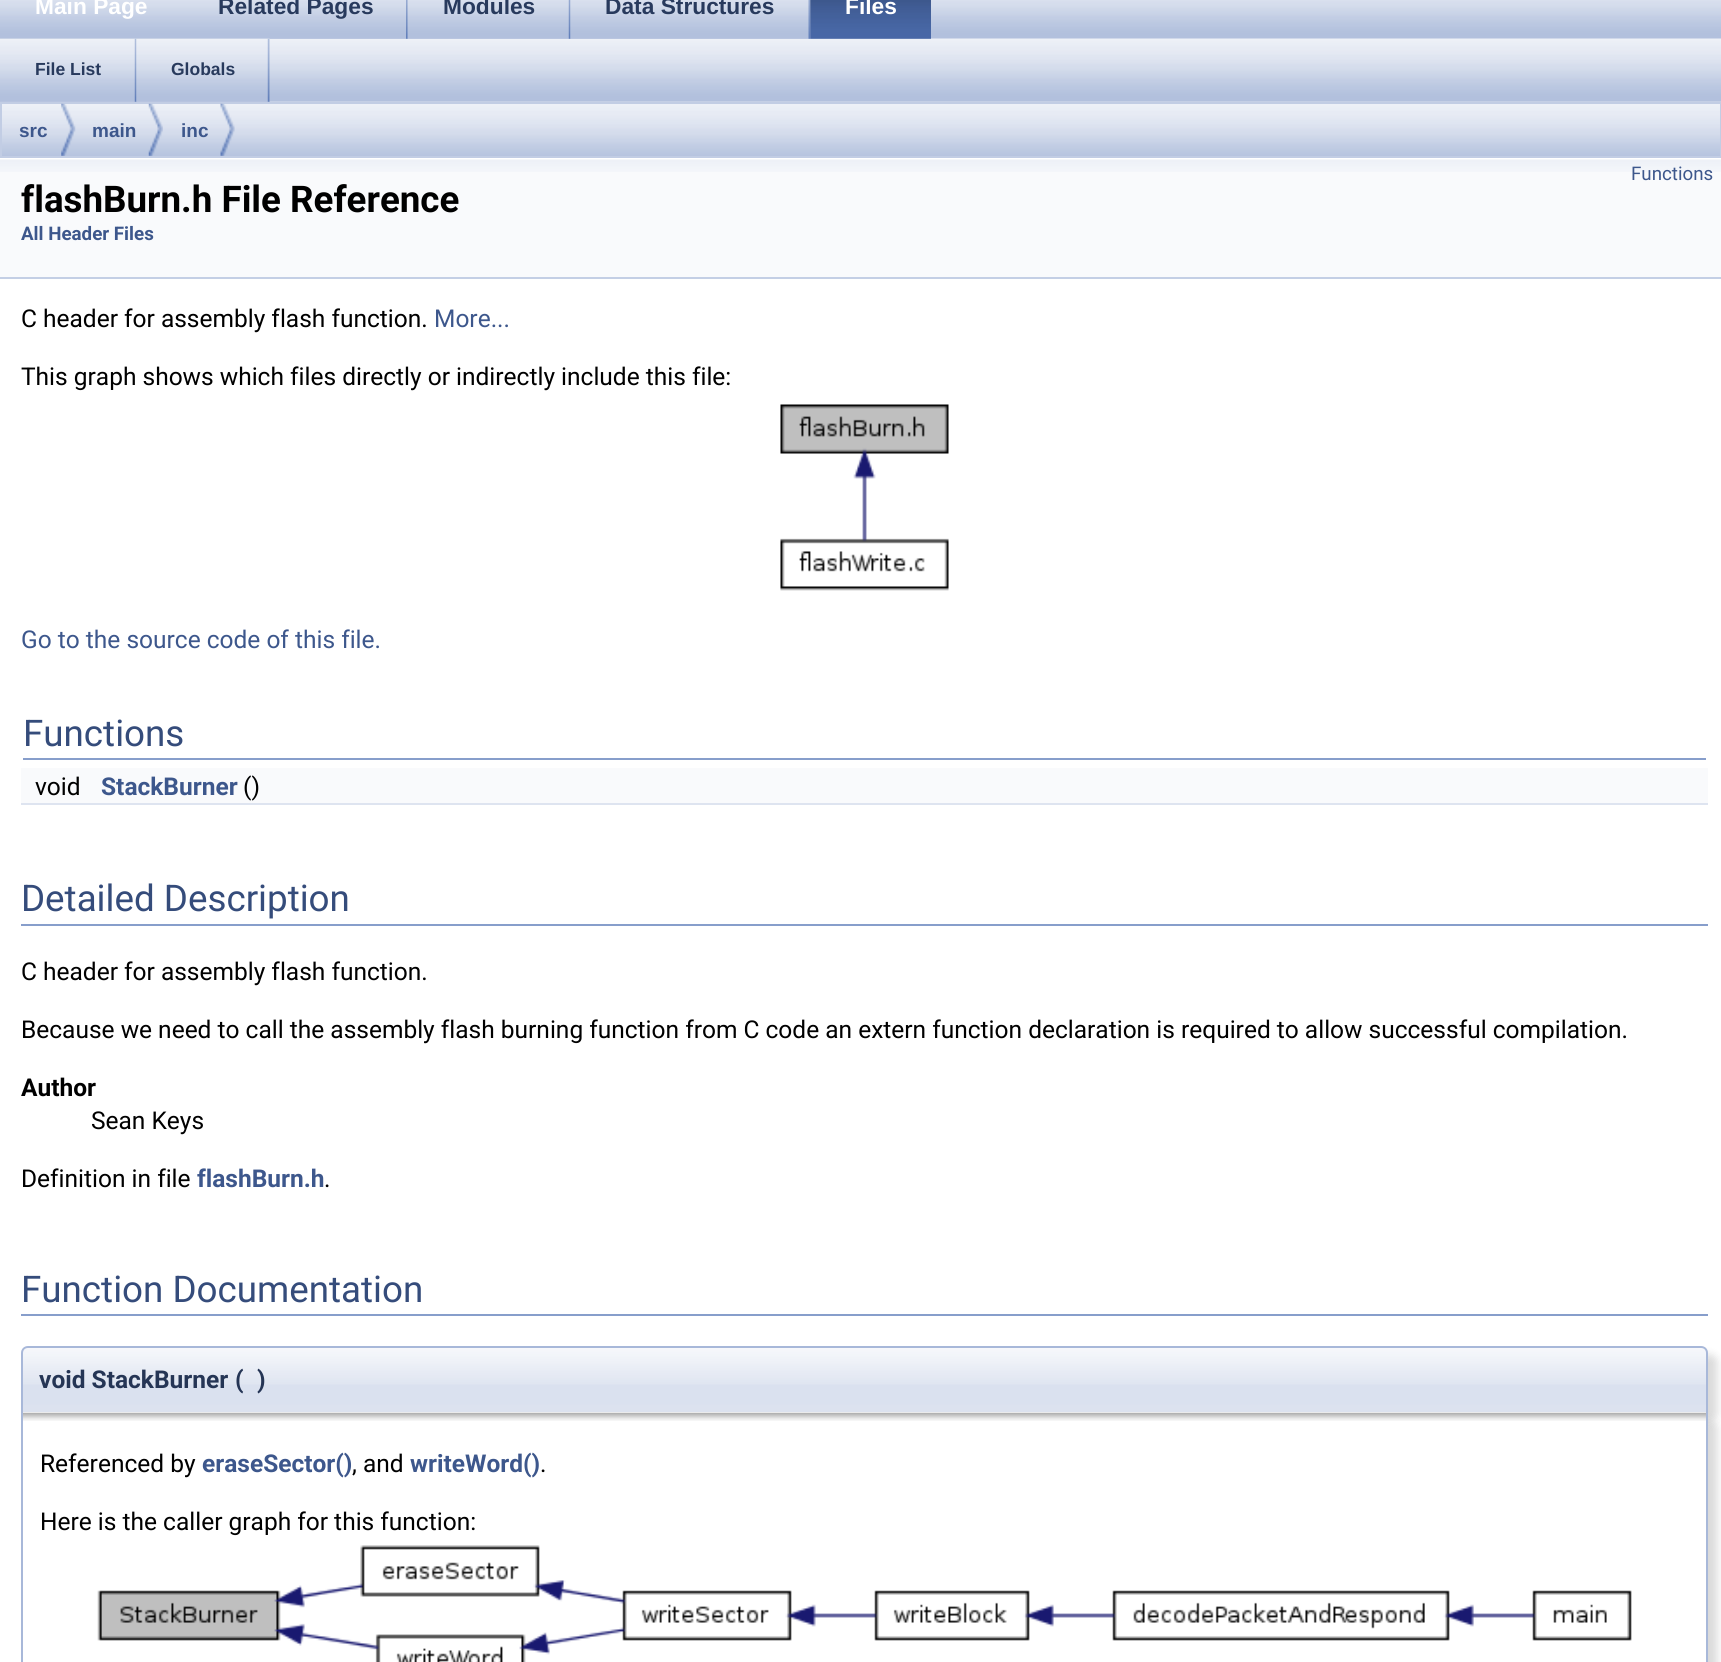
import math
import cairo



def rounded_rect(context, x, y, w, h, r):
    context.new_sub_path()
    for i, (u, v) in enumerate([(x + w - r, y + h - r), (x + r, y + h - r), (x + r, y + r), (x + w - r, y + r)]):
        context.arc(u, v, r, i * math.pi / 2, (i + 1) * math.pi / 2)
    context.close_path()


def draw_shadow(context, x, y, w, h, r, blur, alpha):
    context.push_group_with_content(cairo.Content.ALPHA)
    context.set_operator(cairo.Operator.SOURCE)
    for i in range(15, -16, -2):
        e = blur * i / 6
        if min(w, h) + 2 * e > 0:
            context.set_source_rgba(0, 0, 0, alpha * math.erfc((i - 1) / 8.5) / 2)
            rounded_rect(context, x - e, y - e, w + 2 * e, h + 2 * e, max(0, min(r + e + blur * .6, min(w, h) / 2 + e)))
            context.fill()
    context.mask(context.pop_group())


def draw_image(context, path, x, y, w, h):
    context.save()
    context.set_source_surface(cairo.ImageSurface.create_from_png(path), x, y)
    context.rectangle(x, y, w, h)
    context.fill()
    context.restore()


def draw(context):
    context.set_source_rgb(1, 1, 1)
    context.paint()
    draw_image(context, "images/1.png", 0, 0, 1721, 39)
    draw_image(context, "images/10.png", 0, 38, 1721, 64)
    context.set_source_rgb(185 / 255, 197 / 255, 223 / 255)
    context.rectangle(0, 38, 182, 1)
    context.fill()
    draw_image(context, "images/2.png", 182, 38, 226, 1)
    draw_image(context, "images/3.png", 406, 0, 2, 39)
    draw_image(context, "images/4.png", 407, 0, 164, 39)
    draw_image(context, "images/5.png", 568, 0, 3, 39)
    draw_image(context, "images/6.png", 570, 0, 241, 39)
    draw_image(context, "images/7.png", 808, 0, 3, 39)
    draw_image(context, "images/8.png", 810, 0, 121, 39)
    draw_image(context, "images/9.png", 810, 0, 121, 39)
    draw_image(context, "images/11.png", 0, 38, 137, 64)
    draw_image(context, "images/12.png", 134, 38, 3, 64)
    draw_image(context, "images/13.png", 136, 38, 134, 64)
    draw_image(context, "images/14.png", 267, 38, 3, 64)
    draw_image(context, "images/15.png", 2, 104, 1718, 52)
    context.rectangle(1, 103, 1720, 54)
    context.set_source_rgb(194 / 255, 205 / 255, 228 / 255)
    context.stroke()
    draw_image(context, "images/16.png", 61, 103, 15, 53)
    draw_image(context, "images/17.png", 148, 103, 15, 53)
    draw_image(context, "images/18.png", 220, 103, 15, 53)
    context.set_source_rgb(249 / 255, 250 / 255, 252 / 255)
    context.rectangle(0, 172, 1721, 105)
    context.fill()
    draw_image(context, "images/19.png", 0, 158, 1721, 14)
    context.set_source_rgb(196 / 255, 207 / 255, 229 / 255)
    context.rectangle(0, 277, 1721, 2)
    context.fill()
    draw_image(context, "images/20.png", 780, 404, 169, 187)
    context.set_source_rgb(135 / 255, 158 / 255, 203 / 255)
    context.rectangle(23, 758, 1683, 2)
    context.fill()
    context.set_source_rgb(249 / 255, 250 / 255, 252 / 255)
    context.rectangle(21, 768, 1687, 35)
    context.fill()
    context.set_source_rgb(222 / 255, 228 / 255, 240 / 255)
    context.rectangle(21, 803, 1687, 2)
    context.fill()
    context.set_source_rgb(135 / 255, 158 / 255, 203 / 255)
    context.rectangle(21, 924, 1687, 2)
    context.fill()
    context.rectangle(21, 1314, 1687, 2)
    context.fill()
    context.set_source_rgb(0, 0, 0)
    draw_shadow(context, 30, 1355, 1687, 66, 7, 4.5, 0.15)
    draw_image(context, "images/21.png", 21, 1347, 1687, 65)
    context.set_source_rgb(168 / 255, 184 / 255, 217 / 255)
    context.set_fill_rule(cairo.FillRule.EVEN_ODD)
    context.new_path()
    context.move_to(28, 1346)
    context.line_to(1701, 1346)
    context.curve_to(1705, 1346, 1708, 1349, 1708, 1353)
    context.line_to(1708, 1412)
    context.line_to(21, 1412)
    context.line_to(21, 1353)
    context.curve_to(21, 1349, 24, 1346, 28, 1346)
    context.close_path()
    context.move_to(28, 1348)
    context.line_to(1701, 1348)
    context.curve_to(1704, 1348, 1706, 1350, 1706, 1353)
    context.line_to(1706, 1412)
    context.line_to(23, 1412)
    context.line_to(23, 1353)
    context.curve_to(23, 1350, 25, 1348, 28, 1348)
    context.close_path()
    context.fill()
    context.set_source_rgb(0, 0, 0)
    draw_shadow(context, 30, 1421, 1687, 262, 7, 4.5, 0.15)
    context.set_source_rgb(1, 1, 1)
    context.rectangle(23, 1412, 1683, 250)
    context.fill()
    draw_image(context, "images/22.png", 23, 1412, 1683, 9)
    context.set_source_rgb(168 / 255, 184 / 255, 217 / 255)
    context.new_path()
    context.move_to(21, 1412)
    context.line_to(1708, 1412)
    context.line_to(1708, 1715)
    context.curve_to(1708, 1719, 1705, 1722, 1701, 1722)
    context.line_to(28, 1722)
    context.curve_to(24, 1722, 21, 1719, 21, 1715)
    context.close_path()
    context.move_to(23, 1412)
    context.line_to(1706, 1412)
    context.line_to(1706, 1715)
    context.curve_to(1706, 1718, 1704, 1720, 1701, 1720)
    context.line_to(28, 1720)
    context.curve_to(25, 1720, 23, 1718, 23, 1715)
    context.close_path()
    context.fill()
    draw_image(context, "images/23.png", 97, 1545, 1535, 117)
    context.select_font_face("Liberation Sans", cairo.FontSlant.NORMAL, cairo.FontWeight.BOLD)
    context.set_font_size(22.75)
    context.set_source_rgb(1, 1, 1)
    context.move_to(35, 14)
    context.show_text("Main Page")
    context.set_source_rgb(40 / 255, 58 / 255, 93 / 255)
    context.move_to(218, 14)
    context.show_text("Related Pages")
    context.move_to(443, 14)
    context.show_text("Modules")
    context.move_to(605, 14)
    context.show_text("Data Structures")
    context.set_source_rgb(1, 1, 1)
    context.move_to(845, 14)
    context.show_text("Files")
    context.set_font_size(17.5)
    context.set_source_rgb(40 / 255, 58 / 255, 93 / 255)
    context.move_to(35, 75)
    context.show_text("File List")
    context.move_to(171, 75)
    context.show_text("Globals")
    context.set_font_size(19)
    context.set_source_rgb(61 / 255, 87 / 255, 140 / 255)
    context.move_to(19, 137)
    context.show_text("src")
    context.move_to(92, 137)
    context.show_text("main")
    context.move_to(181, 137)
    context.show_text("inc")
    context.select_font_face("Roboto")
    context.set_font_size(18.75)
    context.move_to(1631, 180)
    context.show_text("Functions")
    context.select_font_face("Roboto", cairo.FontSlant.NORMAL, cairo.FontWeight.BOLD)
    context.set_font_size(36.75)
    context.set_source_rgb(0, 0, 0)
    context.move_to(21, 212)
    context.show_text("flashBurn.h File Reference")
    context.set_font_size(18.75)
    context.set_source_rgb(61 / 255, 87 / 255, 140 / 255)
    context.move_to(21, 240)
    context.show_text("All Header Files")
    context.select_font_face("Roboto")
    context.set_font_size(24.5)
    context.set_source_rgb(0, 0, 0)
    context.move_to(21, 327)
    context.show_text("C header for assembly flash function.")
    context.set_source_rgb(61 / 255, 87 / 255, 140 / 255)
    context.move_to(434, 327)
    context.show_text("More...")
    context.set_source_rgb(0, 0, 0)
    context.move_to(21, 385)
    context.show_text("This graph shows which files directly or indirectly include this file:")
    context.set_source_rgb(61 / 255, 87 / 255, 140 / 255)
    context.move_to(21, 648)
    context.show_text("Go to the source code of this file.")
    context.set_font_size(36.75)
    context.set_source_rgb(53 / 255, 76 / 255, 123 / 255)
    context.move_to(23, 746)
    context.show_text("Functions")
    context.set_font_size(24.5)
    context.set_source_rgb(0, 0, 0)
    context.move_to(35, 795)
    context.show_text("void")
    context.select_font_face("Roboto", cairo.FontSlant.NORMAL, cairo.FontWeight.BOLD)
    context.set_source_rgb(61 / 255, 87 / 255, 140 / 255)
    context.move_to(101, 795)
    context.show_text("StackBurner")
    context.select_font_face("Roboto")
    context.set_source_rgb(0, 0, 0)
    context.move_to(243, 795)
    context.show_text("()")
    context.set_font_size(36.75)
    context.set_source_rgb(53 / 255, 76 / 255, 123 / 255)
    context.move_to(21, 911)
    context.show_text("Detailed Description")
    context.set_font_size(24.5)
    context.set_source_rgb(0, 0, 0)
    context.move_to(21, 980)
    context.show_text("C header for assembly flash function.")
    context.move_to(21, 1038)
    context.show_text("Because we need to call the assembly flash burning function from C code an extern function declaration is required to allow successful compilation.")
    context.select_font_face("Roboto", cairo.FontSlant.NORMAL, cairo.FontWeight.BOLD)
    context.move_to(21, 1096)
    context.show_text("Author")
    context.select_font_face("Roboto")
    context.move_to(91, 1129)
    context.show_text("Sean Keys")
    context.move_to(21, 1187)
    context.show_text("Definition in file")
    context.select_font_face("Roboto", cairo.FontSlant.NORMAL, cairo.FontWeight.BOLD)
    context.set_source_rgb(61 / 255, 87 / 255, 140 / 255)
    context.move_to(197, 1187)
    context.show_text("flashBurn.h")
    context.select_font_face("Roboto")
    context.set_source_rgb(0, 0, 0)
    context.move_to(324, 1187)
    context.show_text(".")
    context.set_font_size(36.75)
    context.set_source_rgb(53 / 255, 76 / 255, 123 / 255)
    context.move_to(21, 1302)
    context.show_text("Function Documentation")
    context.select_font_face("Roboto", cairo.FontSlant.NORMAL, cairo.FontWeight.BOLD)
    context.set_font_size(24.5)
    context.set_source_rgb(37 / 255, 53 / 255, 85 / 255)
    context.move_to(39, 1388)
    context.show_text("void StackBurner")
    context.move_to(235, 1388)
    context.show_text("(")
    context.move_to(257, 1388)
    context.show_text(")")
    context.select_font_face("Roboto")
    context.set_source_rgb(0, 0, 0)
    context.move_to(40, 1472)
    context.show_text("Referenced by")
    context.select_font_face("Roboto", cairo.FontSlant.NORMAL, cairo.FontWeight.BOLD)
    context.set_source_rgb(61 / 255, 87 / 255, 140 / 255)
    context.move_to(202, 1472)
    context.show_text("eraseSector()")
    context.select_font_face("Roboto")
    context.set_source_rgb(0, 0, 0)
    context.move_to(352, 1472)
    context.show_text(", and")
    context.select_font_face("Roboto", cairo.FontSlant.NORMAL, cairo.FontWeight.BOLD)
    context.set_source_rgb(61 / 255, 87 / 255, 140 / 255)
    context.move_to(410, 1472)
    context.show_text("writeWord()")
    context.select_font_face("Roboto")
    context.set_source_rgb(0, 0, 0)
    context.move_to(540, 1472)
    context.show_text(".")
    context.move_to(40, 1530)
    context.show_text("Here is the caller graph for this function:")


surface = cairo.ImageSurface(cairo.Format.RGB24, 1721, 1662)
context = cairo.Context(surface)
options = cairo.FontOptions()
options.set_hint_metrics(cairo.HintMetrics.OFF)
options.set_hint_style(cairo.HintStyle.NONE)
context.set_font_options(options)
context.set_miter_limit(4)
draw(context)
surface.write_to_png("out.png")
